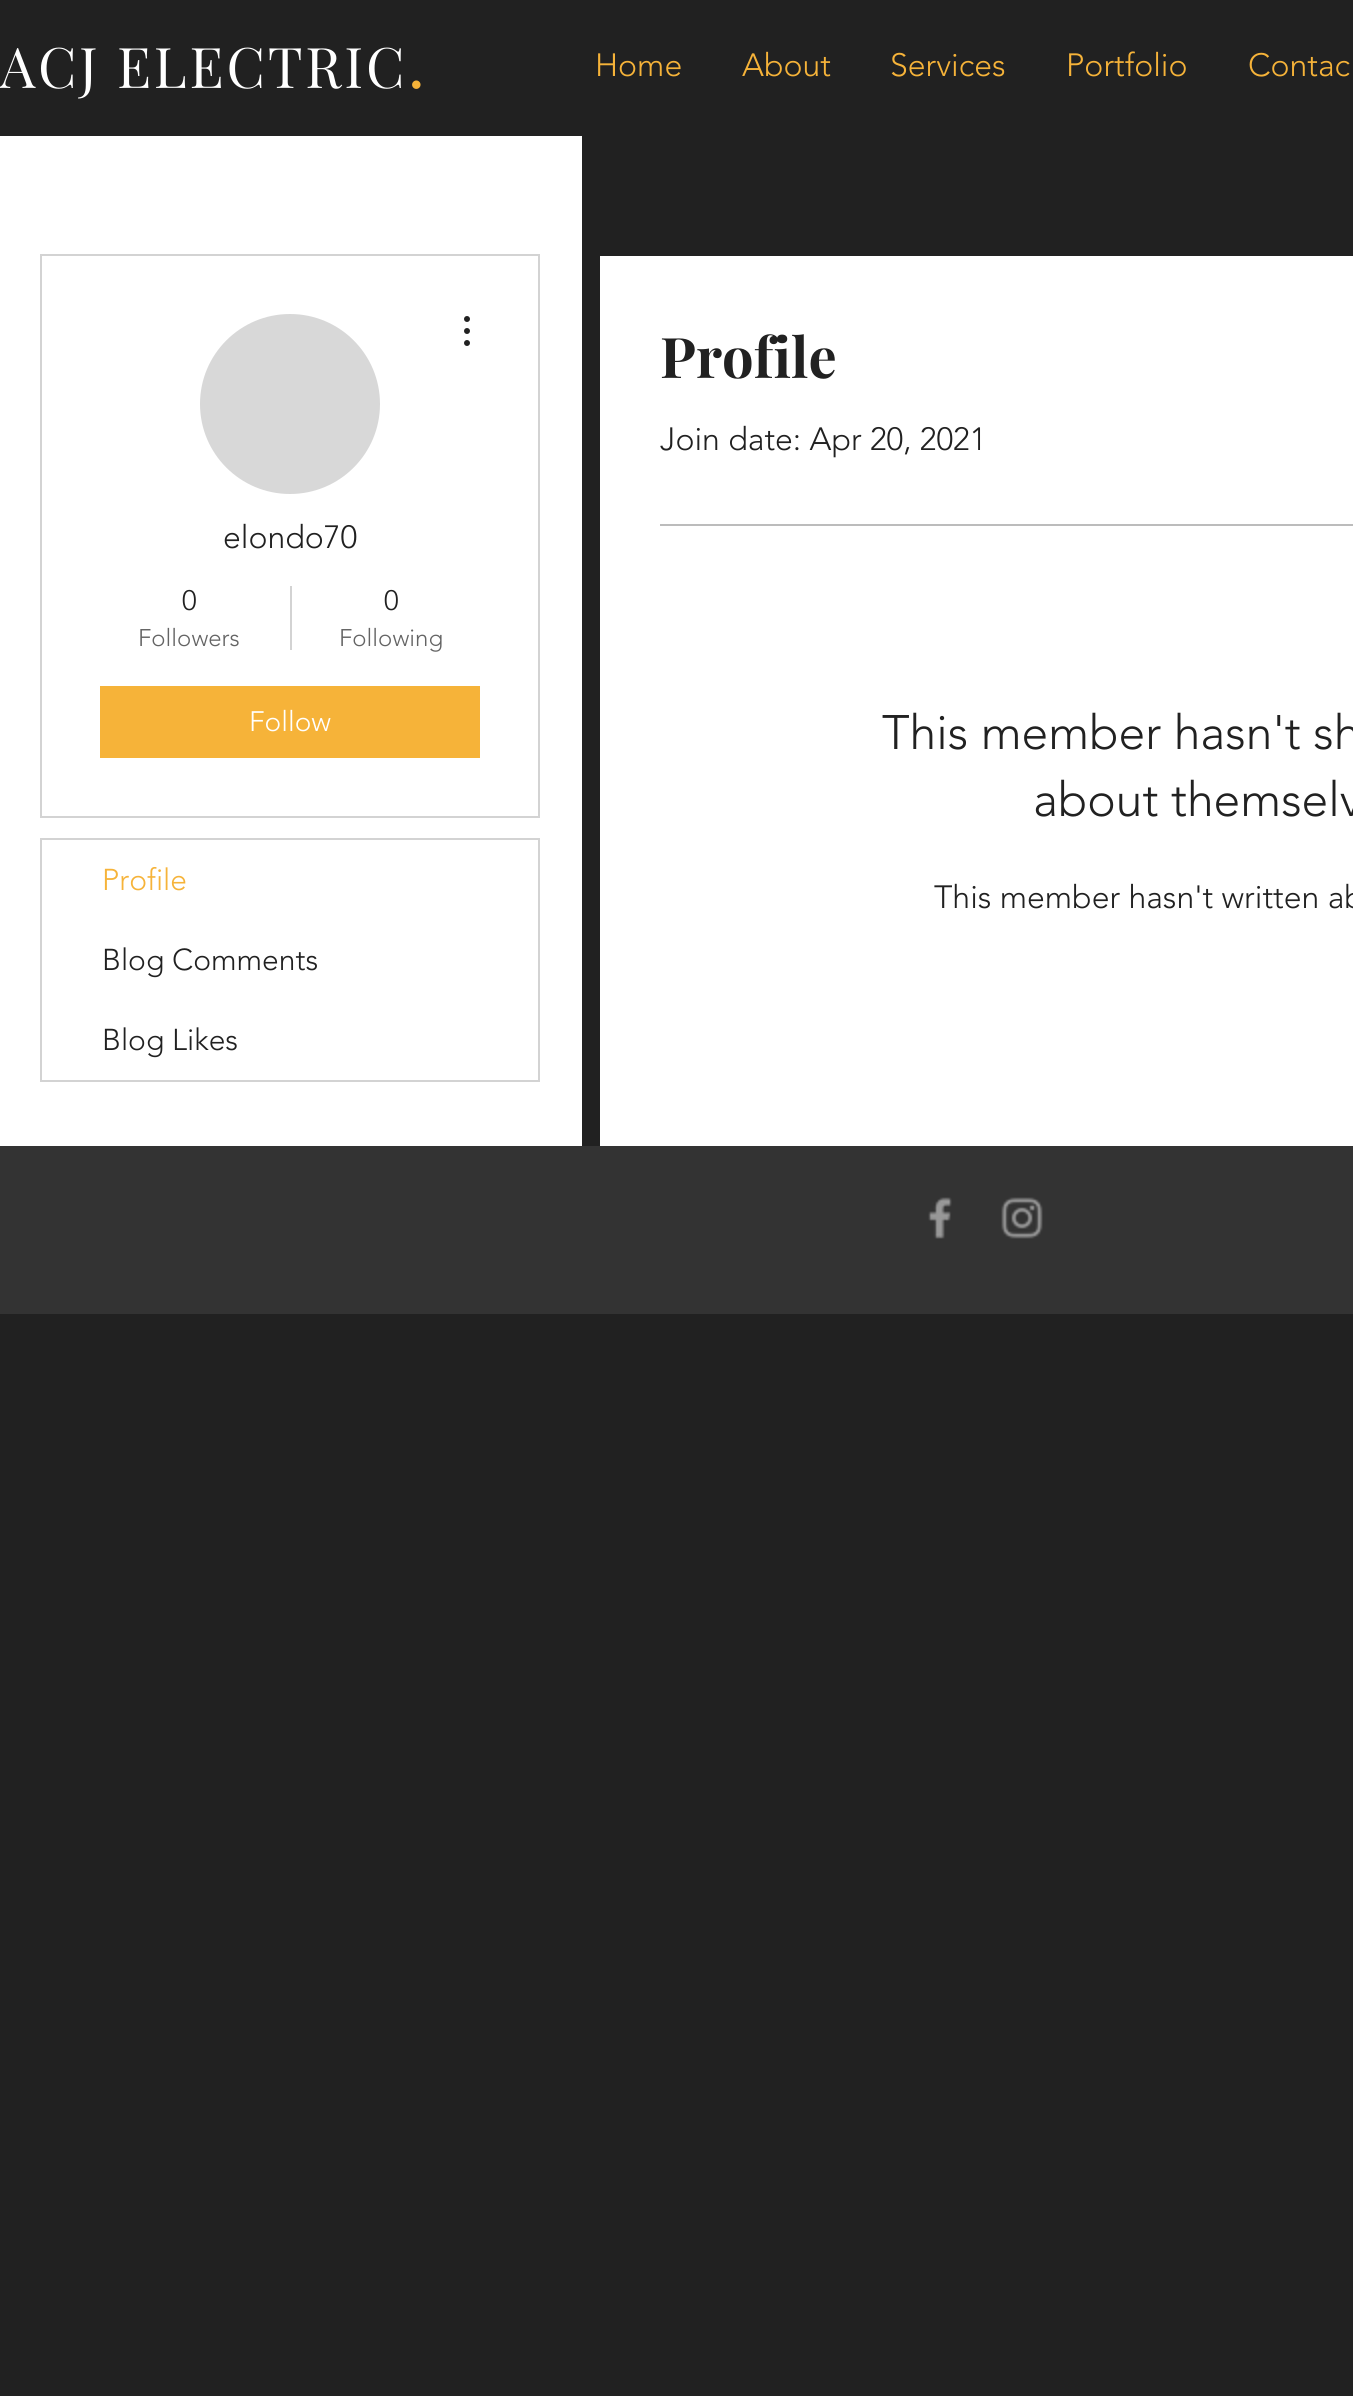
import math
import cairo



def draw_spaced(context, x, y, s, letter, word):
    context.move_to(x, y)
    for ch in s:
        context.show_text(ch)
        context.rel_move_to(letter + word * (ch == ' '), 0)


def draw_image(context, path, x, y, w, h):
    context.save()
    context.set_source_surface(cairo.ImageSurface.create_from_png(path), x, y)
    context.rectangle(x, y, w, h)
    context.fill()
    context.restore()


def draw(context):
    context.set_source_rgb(33 / 255, 33 / 255, 33 / 255)
    context.paint()
    context.set_source_rgb(1, 1, 1)
    context.rectangle(0, 136, 582, 1010)
    context.fill()
    context.rectangle(41, 255, 498, 562)
    context.set_source_rgb(211 / 255, 211 / 255, 211 / 255)
    context.stroke()
    context.set_source_rgb(216 / 255, 216 / 255, 216 / 255)
    context.arc(290, 404, 90, 0, 2 * math.pi)
    context.fill()
    draw_image(context, "images/1.png", 464, 316, 6, 30)
    context.set_source_rgb(211 / 255, 211 / 255, 211 / 255)
    context.rectangle(290, 586, 2, 64)
    context.fill()
    context.set_source_rgb(246 / 255, 179 / 255, 57 / 255)
    context.rectangle(100, 686, 380, 72)
    context.fill()
    context.rectangle(41, 839, 498, 242)
    context.set_source_rgb(211 / 255, 211 / 255, 211 / 255)
    context.stroke()
    context.set_source_rgb(1, 1, 1)
    context.rectangle(600, 256, 753, 890)
    context.fill()
    context.set_source_rgb(188 / 255, 188 / 255, 188 / 255)
    context.rectangle(660, 524, 693, 2)
    context.fill()
    context.set_source_rgb(51 / 255, 51 / 255, 51 / 255)
    context.rectangle(0, 1146, 1353, 168)
    context.fill()
    draw_image(context, "images/2.png", 928, 1197, 24, 42)
    draw_image(context, "images/3.png", 1001, 1197, 42, 42)
    context.select_font_face("Playfair Display")
    context.set_font_size(56)
    context.set_source_rgb(1, 1, 1)
    draw_spaced(context, 0, 88, "ACJ ELECTRIC", 2.75, 0)
    context.set_font_size(66)
    context.set_source_rgb(246 / 255, 179 / 255, 57 / 255)
    context.move_to(408, 88)
    context.show_text(".")
    context.select_font_face("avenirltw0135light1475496 Light")
    context.set_font_size(32)
    context.move_to(595, 76)
    context.show_text("Home")
    context.move_to(742, 76)
    context.show_text("About")
    context.move_to(890, 76)
    context.show_text("Services")
    context.move_to(1066, 76)
    context.show_text("Portfolio")
    context.move_to(1248, 76)
    context.show_text("Contac")
    context.set_source_rgb(33 / 255, 33 / 255, 33 / 255)
    context.move_to(223, 548)
    context.show_text("elondo70")
    context.set_font_size(28)
    context.move_to(182, 610)
    context.show_text("0")
    context.set_font_size(24)
    context.set_source_rgb(100 / 255, 100 / 255, 100 / 255)
    context.move_to(138, 646)
    context.show_text("Followers")
    context.set_font_size(28)
    context.set_source_rgb(33 / 255, 33 / 255, 33 / 255)
    context.move_to(384, 610)
    context.show_text("0")
    context.set_font_size(24)
    context.set_source_rgb(100 / 255, 100 / 255, 100 / 255)
    context.move_to(339, 646)
    context.show_text("Following")
    context.set_font_size(28)
    context.set_source_rgb(1, 1, 1)
    context.move_to(249, 731)
    context.show_text("Follow")
    context.set_font_size(30)
    context.set_source_rgb(246 / 255, 179 / 255, 57 / 255)
    context.move_to(102, 890)
    context.show_text("Profile")
    context.set_source_rgb(33 / 255, 33 / 255, 33 / 255)
    context.move_to(102, 970)
    context.show_text("Blog Comments")
    context.move_to(102, 1050)
    context.show_text("Blog Likes")
    context.select_font_face("Playfair Display", cairo.FontSlant.NORMAL, cairo.FontWeight.BOLD)
    context.set_font_size(56)
    context.move_to(660, 378)
    context.show_text("Profile")
    context.select_font_face("avenirltw0135light1475496 Light")
    context.set_font_size(32)
    context.move_to(660, 450)
    context.show_text("Join date: Apr 20, 2021")
    context.set_font_size(48)
    context.move_to(882, 749)
    context.show_text("This member hasn't sh")
    context.move_to(1033, 816)
    context.show_text("about themselv")
    context.set_font_size(32)
    context.move_to(934, 908)
    context.show_text("This member hasn't written ab")


surface = cairo.ImageSurface(cairo.Format.RGB24, 1353, 2396)
context = cairo.Context(surface)
options = cairo.FontOptions()
options.set_hint_metrics(cairo.HintMetrics.OFF)
options.set_hint_style(cairo.HintStyle.NONE)
context.set_font_options(options)
context.set_miter_limit(4)
draw(context)
surface.write_to_png("out.png")
